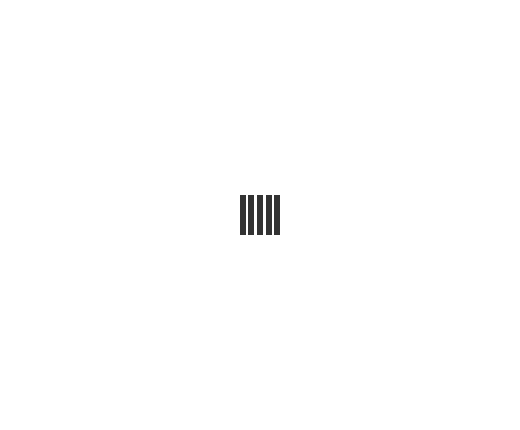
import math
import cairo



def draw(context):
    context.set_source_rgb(1, 1, 1)
    context.paint()
    context.set_source_rgb(51 / 255, 51 / 255, 51 / 255)
    context.rectangle(240, 195, 6, 40)
    context.fill()
    context.rectangle(248, 195, 6, 40)
    context.fill()
    context.rectangle(257, 195, 6, 40)
    context.fill()
    context.rectangle(266, 195, 6, 40)
    context.fill()
    context.rectangle(274, 195, 6, 40)
    context.fill()


surface = cairo.ImageSurface(cairo.Format.RGB24, 520, 430)
context = cairo.Context(surface)
options = cairo.FontOptions()
options.set_hint_metrics(cairo.HintMetrics.OFF)
options.set_hint_style(cairo.HintStyle.NONE)
context.set_font_options(options)
context.set_miter_limit(4)
draw(context)
surface.write_to_png("out.png")
